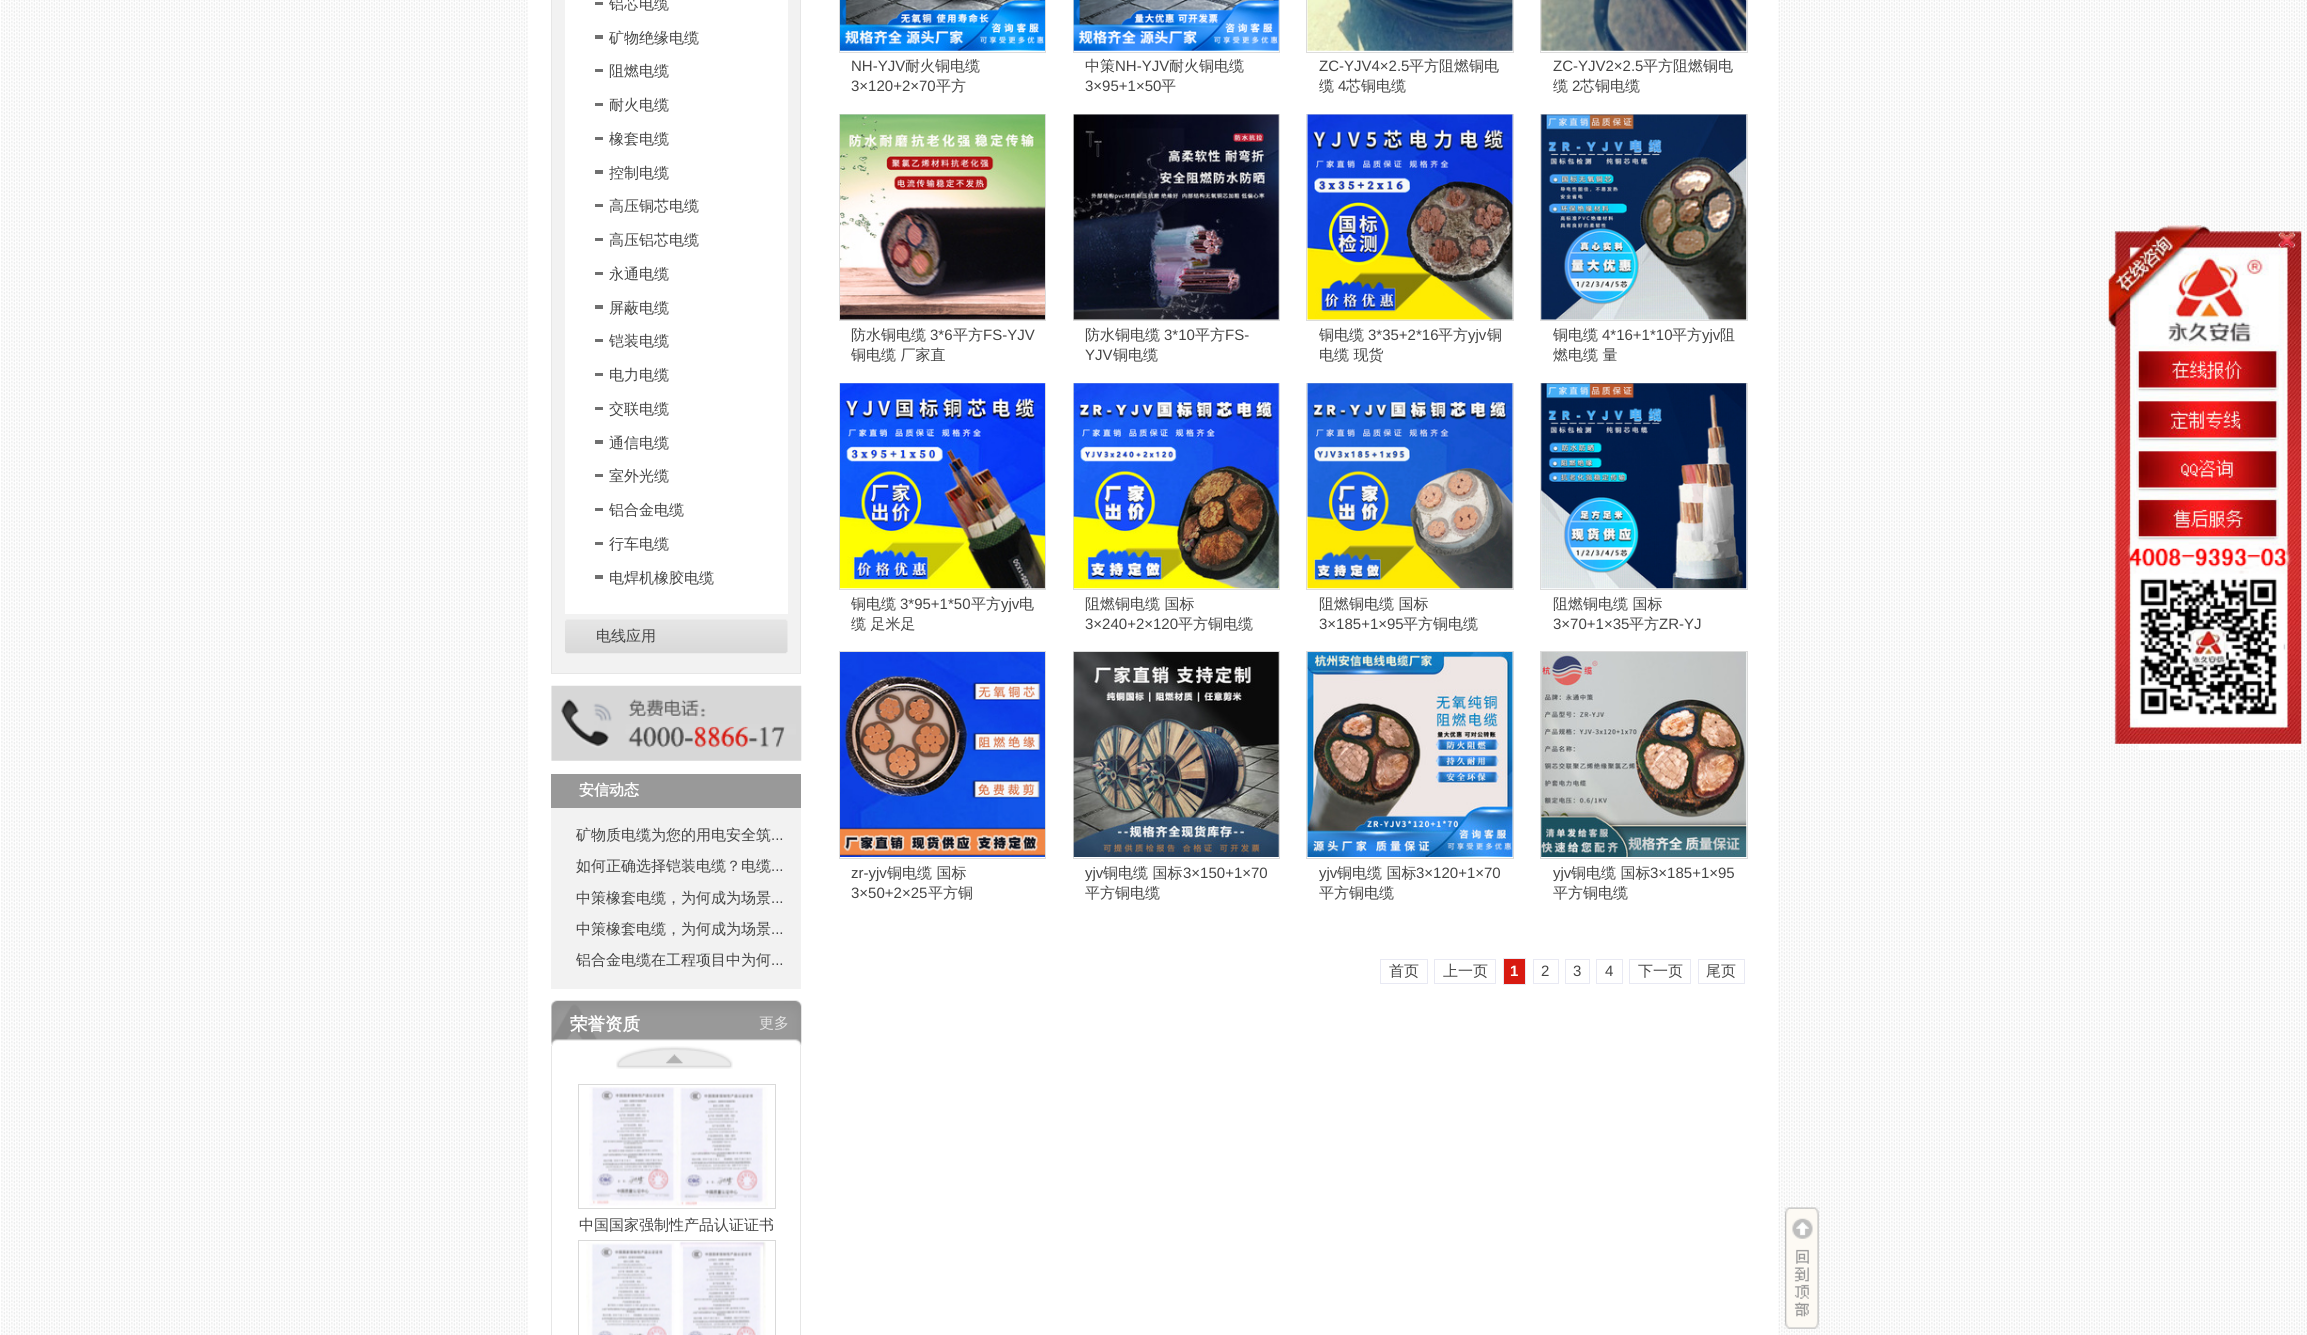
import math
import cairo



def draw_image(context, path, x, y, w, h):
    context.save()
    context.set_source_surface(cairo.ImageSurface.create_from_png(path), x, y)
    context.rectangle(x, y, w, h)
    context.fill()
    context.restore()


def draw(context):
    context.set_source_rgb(1, 1, 1)
    context.paint()
    draw_image(context, "images/1.png", 1, 0, 2306, 1335)
    context.set_source_rgb(242 / 255, 242 / 255, 242 / 255)
    context.rectangle(552, 0, 248, 673)
    context.fill()
    context.set_source_rgb(230 / 255, 230 / 255, 230 / 255)
    context.rectangle(800, 0, 1, 674)
    context.fill()
    context.rectangle(551, 673, 250, 1)
    context.fill()
    context.rectangle(551, 0, 1, 674)
    context.fill()
    context.set_source_rgb(1, 1, 1)
    context.rectangle(565, 0, 223, 614)
    context.fill()
    context.set_source_rgb(112 / 255, 112 / 255, 112 / 255)
    context.rectangle(595, 2, 8, 3)
    context.fill()
    context.rectangle(595, 35, 8, 4)
    context.fill()
    context.rectangle(595, 69, 8, 3)
    context.fill()
    context.rectangle(595, 103, 8, 3)
    context.fill()
    context.rectangle(595, 137, 8, 3)
    context.fill()
    context.rectangle(595, 170, 8, 4)
    context.fill()
    context.rectangle(595, 204, 8, 3)
    context.fill()
    context.rectangle(595, 238, 8, 3)
    context.fill()
    context.rectangle(595, 272, 8, 3)
    context.fill()
    context.rectangle(595, 305, 8, 4)
    context.fill()
    context.rectangle(595, 339, 8, 3)
    context.fill()
    context.rectangle(595, 373, 8, 3)
    context.fill()
    context.rectangle(595, 407, 8, 3)
    context.fill()
    context.rectangle(595, 440, 8, 4)
    context.fill()
    context.rectangle(595, 474, 8, 3)
    context.fill()
    context.rectangle(595, 508, 8, 3)
    context.fill()
    context.rectangle(595, 542, 8, 3)
    context.fill()
    context.rectangle(595, 575, 8, 4)
    context.fill()
    draw_image(context, "images/2.png", 565, 619, 223, 35)
    draw_image(context, "images/3.png", 551, 685, 251, 76)
    context.set_source_rgb(153 / 255, 153 / 255, 153 / 255)
    context.rectangle(551, 774, 250, 34)
    context.fill()
    context.set_source_rgb(242 / 255, 242 / 255, 242 / 255)
    context.rectangle(551, 808, 250, 181)
    context.fill()
    draw_image(context, "images/4.png", 551, 1000, 251, 46)
    context.set_source_rgb(230 / 255, 230 / 255, 230 / 255)
    context.rectangle(800, 1046, 1, 289)
    context.fill()
    context.rectangle(551, 1046, 1, 289)
    context.fill()
    draw_image(context, "images/5.png", 616, 1046, 117, 23)
    context.rectangle(578.5, 1084.5, 197, 124)
    context.set_source_rgb(217 / 255, 217 / 255, 217 / 255)
    context.set_line_width(1)
    context.stroke()
    draw_image(context, "images/6.png", 589, 1087, 179, 119)
    context.rectangle(578.5, 1240.5, 197, 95)
    context.stroke()
    draw_image(context, "images/7.png", 586, 1241, 180, 94)
    context.rectangle(839.5, -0.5, 206, 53)
    context.set_source_rgb(220 / 255, 220 / 255, 220 / 255)
    context.stroke()
    draw_image(context, "images/8.png", 840, 0, 205, 51)
    context.rectangle(1073.5, -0.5, 206, 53)
    context.stroke()
    draw_image(context, "images/9.png", 1073, 0, 206, 51)
    context.rectangle(1306.5, -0.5, 207, 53)
    context.stroke()
    draw_image(context, "images/10.png", 1307, 0, 206, 51)
    context.rectangle(1540.5, -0.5, 207, 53)
    context.stroke()
    draw_image(context, "images/11.png", 1541, 0, 206, 51)
    context.rectangle(839.5, 114.5, 206, 206)
    context.stroke()
    draw_image(context, "images/12.png", 840, 114, 205, 206)
    context.rectangle(1073.5, 114.5, 206, 206)
    context.stroke()
    draw_image(context, "images/13.png", 1073, 114, 206, 206)
    context.rectangle(1306.5, 114.5, 207, 206)
    context.stroke()
    draw_image(context, "images/14.png", 1307, 114, 206, 206)
    context.rectangle(1540.5, 114.5, 207, 206)
    context.stroke()
    draw_image(context, "images/15.png", 1541, 114, 206, 206)
    context.rectangle(839.5, 383.5, 206, 206)
    context.stroke()
    draw_image(context, "images/16.png", 840, 383, 205, 206)
    context.rectangle(1073.5, 383.5, 206, 206)
    context.stroke()
    draw_image(context, "images/17.png", 1073, 383, 206, 206)
    context.rectangle(1306.5, 383.5, 207, 206)
    context.stroke()
    draw_image(context, "images/18.png", 1307, 383, 206, 206)
    context.rectangle(1540.5, 383.5, 207, 206)
    context.stroke()
    draw_image(context, "images/19.png", 1541, 383, 206, 206)
    context.rectangle(839.5, 651.5, 206, 207)
    context.stroke()
    draw_image(context, "images/20.png", 840, 652, 205, 205)
    context.rectangle(1073.5, 651.5, 206, 207)
    context.stroke()
    draw_image(context, "images/21.png", 1073, 652, 206, 205)
    context.rectangle(1306.5, 651.5, 207, 207)
    context.stroke()
    draw_image(context, "images/22.png", 1307, 652, 206, 205)
    context.rectangle(1540.5, 651.5, 207, 207)
    context.stroke()
    draw_image(context, "images/23.png", 1541, 652, 206, 205)
    context.rectangle(1380.5, 959.5, 47, 24)
    context.set_source_rgb(232 / 255, 233 / 255, 243 / 255)
    context.stroke()
    context.rectangle(1434.5, 959.5, 61, 24)
    context.stroke()
    context.set_source_rgb(216 / 255, 26 / 255, 17 / 255)
    context.rectangle(1503.5, 958.5, 22, 26)
    context.fill_preserve()
    context.set_source_rgb(232 / 255, 233 / 255, 243 / 255)
    context.stroke()
    context.rectangle(1533.5, 959.5, 25, 24)
    context.stroke()
    context.rectangle(1565.5, 959.5, 24, 24)
    context.stroke()
    context.rectangle(1596.5, 959.5, 26, 24)
    context.stroke()
    context.rectangle(1629.5, 959.5, 61, 24)
    context.stroke()
    context.rectangle(1698.5, 959.5, 46, 24)
    context.stroke()
    draw_image(context, "images/26.png", 2139, 743, 161, 7)
    draw_image(context, "images/24.png", 2108, 225, 194, 519)
    draw_image(context, "images/25.png", 2278, 232, 18, 16)
    context.set_source_rgb(1, 1, 1)
    context.rectangle(1786, 1208, 33, 121)
    context.fill()
    draw_image(context, "images/27.png", 1785, 1207, 34, 122)
    context.select_font_face("WenQuanYi Zen Hei Medium")
    context.set_font_size(15)
    context.set_source_rgb(69 / 255, 69 / 255, 69 / 255)
    context.move_to(609, 9)
    context.show_text("铝芯电缆")
    context.move_to(609, 43)
    context.show_text("矿物绝缘电缆")
    context.move_to(609, 76)
    context.show_text("阻燃电缆")
    context.move_to(609, 110)
    context.show_text("耐火电缆")
    context.move_to(609, 144)
    context.show_text("橡套电缆")
    context.move_to(609, 178)
    context.show_text("控制电缆")
    context.move_to(609, 211)
    context.show_text("高压铜芯电缆")
    context.move_to(609, 245)
    context.show_text("高压铝芯电缆")
    context.move_to(609, 279)
    context.show_text("永通电缆")
    context.move_to(609, 313)
    context.show_text("屏蔽电缆")
    context.move_to(609, 346)
    context.show_text("铠装电缆")
    context.move_to(609, 380)
    context.show_text("电力电缆")
    context.move_to(609, 414)
    context.show_text("交联电缆")
    context.move_to(609, 448)
    context.show_text("通信电缆")
    context.move_to(609, 481)
    context.show_text("室外光缆")
    context.move_to(609, 515)
    context.show_text("铝合金电缆")
    context.move_to(609, 549)
    context.show_text("行车电缆")
    context.move_to(609, 583)
    context.show_text("电焊机橡胶电缆")
    context.move_to(596, 641)
    context.show_text("电线应用")
    context.select_font_face("WenQuanYi Zen Hei", cairo.FontSlant.NORMAL, cairo.FontWeight.BOLD)
    context.set_source_rgb(1, 1, 1)
    context.move_to(579, 795)
    context.show_text("安信动态")
    context.select_font_face("WenQuanYi Zen Hei Medium")
    context.set_source_rgb(69 / 255, 69 / 255, 69 / 255)
    context.move_to(576, 840)
    context.show_text("矿物质电缆为您的用电安全筑")
    context.select_font_face("Liberation Sans")
    context.move_to(771, 840)
    context.show_text("...")
    context.select_font_face("WenQuanYi Zen Hei Medium")
    context.move_to(576, 871)
    context.show_text("如何正确选择铠装电缆？电缆")
    context.select_font_face("Liberation Sans")
    context.move_to(771, 871)
    context.show_text("...")
    context.select_font_face("WenQuanYi Zen Hei Medium")
    context.move_to(576, 903)
    context.show_text("中策橡套电缆，为何成为场景")
    context.select_font_face("Liberation Sans")
    context.move_to(771, 903)
    context.show_text("...")
    context.select_font_face("WenQuanYi Zen Hei Medium")
    context.move_to(576, 934)
    context.show_text("中策橡套电缆，为何成为场景")
    context.select_font_face("Liberation Sans")
    context.move_to(771, 934)
    context.show_text("...")
    context.select_font_face("WenQuanYi Zen Hei Medium")
    context.move_to(576, 965)
    context.show_text("铝合金电缆在工程项目中为何")
    context.select_font_face("Liberation Sans")
    context.move_to(771, 965)
    context.show_text("...")
    context.select_font_face("WenQuanYi Zen Hei", cairo.FontSlant.NORMAL, cairo.FontWeight.BOLD)
    context.set_font_size(17.5)
    context.set_source_rgb(1, 1, 1)
    context.move_to(570, 1030)
    context.show_text("荣誉资质")
    context.select_font_face("WenQuanYi Zen Hei Medium")
    context.set_font_size(15)
    context.set_source_rgb(228 / 255, 228 / 255, 228 / 255)
    context.move_to(759, 1028)
    context.show_text("更多")
    context.set_source_rgb(69 / 255, 69 / 255, 69 / 255)
    context.move_to(579, 1230)
    context.show_text("中国国家强制性产品认证证书")
    context.select_font_face("Liberation Sans")
    context.move_to(851, 71)
    context.show_text("NH-YJV")
    context.select_font_face("WenQuanYi Zen Hei Medium")
    context.move_to(905, 71)
    context.show_text("耐火铜电缆")
    context.select_font_face("Liberation Sans")
    context.move_to(851, 91)
    context.show_text("3×120+2×70")
    context.select_font_face("WenQuanYi Zen Hei Medium")
    context.move_to(936, 91)
    context.show_text("平方")
    context.move_to(1085, 71)
    context.show_text("中策")
    context.select_font_face("Liberation Sans")
    context.move_to(1115, 71)
    context.show_text("NH-YJV")
    context.select_font_face("WenQuanYi Zen Hei Medium")
    context.move_to(1169, 71)
    context.show_text("耐火铜电缆")
    context.select_font_face("Liberation Sans")
    context.move_to(1085, 91)
    context.show_text("3×95+1×50")
    context.select_font_face("WenQuanYi Zen Hei Medium")
    context.move_to(1161, 91)
    context.show_text("平")
    context.select_font_face("Liberation Sans")
    context.move_to(1319, 71)
    context.show_text("ZC-YJV4×2.5")
    context.select_font_face("WenQuanYi Zen Hei Medium")
    context.move_to(1409, 71)
    context.show_text("平方阻燃铜电")
    context.move_to(1319, 91)
    context.show_text("缆")
    context.select_font_face("Liberation Sans")
    context.move_to(1338, 91)
    context.show_text("4")
    context.select_font_face("WenQuanYi Zen Hei Medium")
    context.move_to(1346, 91)
    context.show_text("芯铜电缆")
    context.select_font_face("Liberation Sans")
    context.move_to(1553, 71)
    context.show_text("ZC-YJV2×2.5")
    context.select_font_face("WenQuanYi Zen Hei Medium")
    context.move_to(1643, 71)
    context.show_text("平方阻燃铜电")
    context.move_to(1553, 91)
    context.show_text("缆")
    context.select_font_face("Liberation Sans")
    context.move_to(1572, 91)
    context.show_text("2")
    context.select_font_face("WenQuanYi Zen Hei Medium")
    context.move_to(1580, 91)
    context.show_text("芯铜电缆")
    context.move_to(851, 340)
    context.show_text("防水铜电缆")
    context.select_font_face("Liberation Sans")
    context.move_to(930, 340)
    context.show_text("3*6")
    context.select_font_face("WenQuanYi Zen Hei Medium")
    context.move_to(953, 340)
    context.show_text("平方")
    context.select_font_face("Liberation Sans")
    context.move_to(983, 340)
    context.show_text("FS-YJV")
    context.select_font_face("WenQuanYi Zen Hei Medium")
    context.move_to(851, 360)
    context.show_text("铜电缆 厂家直")
    context.move_to(1085, 340)
    context.show_text("防水铜电缆")
    context.select_font_face("Liberation Sans")
    context.move_to(1164, 340)
    context.show_text("3*10")
    context.select_font_face("WenQuanYi Zen Hei Medium")
    context.move_to(1195, 340)
    context.show_text("平方")
    context.select_font_face("Liberation Sans")
    context.move_to(1225, 340)
    context.show_text("FS-")
    context.move_to(1085, 360)
    context.show_text("YJV")
    context.select_font_face("WenQuanYi Zen Hei Medium")
    context.move_to(1113, 360)
    context.show_text("铜电缆")
    context.move_to(1319, 340)
    context.show_text("铜电缆")
    context.select_font_face("Liberation Sans")
    context.move_to(1368, 340)
    context.show_text("3*35+2*16")
    context.select_font_face("WenQuanYi Zen Hei Medium")
    context.move_to(1438, 340)
    context.show_text("平方")
    context.select_font_face("Liberation Sans")
    context.move_to(1468, 340)
    context.show_text("yjv")
    context.select_font_face("WenQuanYi Zen Hei Medium")
    context.move_to(1487, 340)
    context.show_text("铜")
    context.move_to(1319, 360)
    context.show_text("电缆 现货")
    context.move_to(1553, 340)
    context.show_text("铜电缆")
    context.select_font_face("Liberation Sans")
    context.move_to(1602, 340)
    context.show_text("4*16+1*10")
    context.select_font_face("WenQuanYi Zen Hei Medium")
    context.move_to(1672, 340)
    context.show_text("平方")
    context.select_font_face("Liberation Sans")
    context.move_to(1702, 340)
    context.show_text("yjv")
    context.select_font_face("WenQuanYi Zen Hei Medium")
    context.move_to(1720, 340)
    context.show_text("阻")
    context.move_to(1553, 360)
    context.show_text("燃电缆 量")
    context.move_to(851, 609)
    context.show_text("铜电缆")
    context.select_font_face("Liberation Sans")
    context.move_to(900, 609)
    context.show_text("3*95+1*50")
    context.select_font_face("WenQuanYi Zen Hei Medium")
    context.move_to(971, 609)
    context.show_text("平方")
    context.select_font_face("Liberation Sans")
    context.move_to(1001, 609)
    context.show_text("yjv")
    context.select_font_face("WenQuanYi Zen Hei Medium")
    context.move_to(1019, 609)
    context.show_text("电")
    context.move_to(851, 629)
    context.show_text("缆 足米足")
    context.move_to(1085, 609)
    context.show_text("阻燃铜电缆 国标")
    context.select_font_face("Liberation Sans")
    context.move_to(1085, 629)
    context.show_text("3×240+2×120")
    context.select_font_face("WenQuanYi Zen Hei Medium")
    context.move_to(1178, 629)
    context.show_text("平方铜电缆")
    context.move_to(1319, 609)
    context.show_text("阻燃铜电缆 国标")
    context.select_font_face("Liberation Sans")
    context.move_to(1319, 629)
    context.show_text("3×185+1×95")
    context.select_font_face("WenQuanYi Zen Hei Medium")
    context.move_to(1403, 629)
    context.show_text("平方铜电缆")
    context.move_to(1553, 609)
    context.show_text("阻燃铜电缆 国标")
    context.select_font_face("Liberation Sans")
    context.move_to(1553, 629)
    context.show_text("3×70+1×35")
    context.select_font_face("WenQuanYi Zen Hei Medium")
    context.move_to(1629, 629)
    context.show_text("平方")
    context.select_font_face("Liberation Sans")
    context.move_to(1659, 629)
    context.show_text("ZR-YJ")
    context.move_to(851, 878)
    context.show_text("zr-yjv")
    context.select_font_face("WenQuanYi Zen Hei Medium")
    context.move_to(887, 878)
    context.show_text("铜电缆 国标")
    context.select_font_face("Liberation Sans")
    context.move_to(851, 898)
    context.show_text("3×50+2×25")
    context.select_font_face("WenQuanYi Zen Hei Medium")
    context.move_to(928, 898)
    context.show_text("平方铜")
    context.select_font_face("Liberation Sans")
    context.move_to(1085, 878)
    context.show_text("yjv")
    context.select_font_face("WenQuanYi Zen Hei Medium")
    context.move_to(1103, 878)
    context.show_text("铜电缆 国标")
    context.select_font_face("Liberation Sans")
    context.move_to(1183, 878)
    context.show_text("3×150+1×70")
    context.select_font_face("WenQuanYi Zen Hei Medium")
    context.move_to(1085, 898)
    context.show_text("平方铜电缆")
    context.select_font_face("Liberation Sans")
    context.move_to(1319, 878)
    context.show_text("yjv")
    context.select_font_face("WenQuanYi Zen Hei Medium")
    context.move_to(1337, 878)
    context.show_text("铜电缆 国标")
    context.select_font_face("Liberation Sans")
    context.move_to(1416, 878)
    context.show_text("3×120+1×70")
    context.select_font_face("WenQuanYi Zen Hei Medium")
    context.move_to(1319, 898)
    context.show_text("平方铜电缆")
    context.select_font_face("Liberation Sans")
    context.move_to(1553, 878)
    context.show_text("yjv")
    context.select_font_face("WenQuanYi Zen Hei Medium")
    context.move_to(1571, 878)
    context.show_text("铜电缆 国标")
    context.select_font_face("Liberation Sans")
    context.move_to(1650, 878)
    context.show_text("3×185+1×95")
    context.select_font_face("WenQuanYi Zen Hei Medium")
    context.move_to(1553, 898)
    context.show_text("平方铜电缆")
    context.move_to(1389, 976)
    context.show_text("首页")
    context.move_to(1443, 976)
    context.show_text("上一页")
    context.select_font_face("Liberation Sans", cairo.FontSlant.NORMAL, cairo.FontWeight.BOLD)
    context.set_source_rgb(1, 1, 1)
    context.move_to(1510, 976)
    context.show_text("1")
    context.select_font_face("Liberation Sans")
    context.set_source_rgb(69 / 255, 69 / 255, 69 / 255)
    context.move_to(1541, 976)
    context.show_text("2")
    context.move_to(1573, 976)
    context.show_text("3")
    context.move_to(1605, 976)
    context.show_text("4")
    context.select_font_face("WenQuanYi Zen Hei Medium")
    context.move_to(1638, 976)
    context.show_text("下一页")
    context.move_to(1706, 976)
    context.show_text("尾页")


surface = cairo.ImageSurface(cairo.Format.RGB24, 2307, 1335)
context = cairo.Context(surface)
options = cairo.FontOptions()
options.set_hint_metrics(cairo.HintMetrics.OFF)
options.set_hint_style(cairo.HintStyle.NONE)
context.set_font_options(options)
context.set_miter_limit(4)
draw(context)
surface.write_to_png("out.png")
